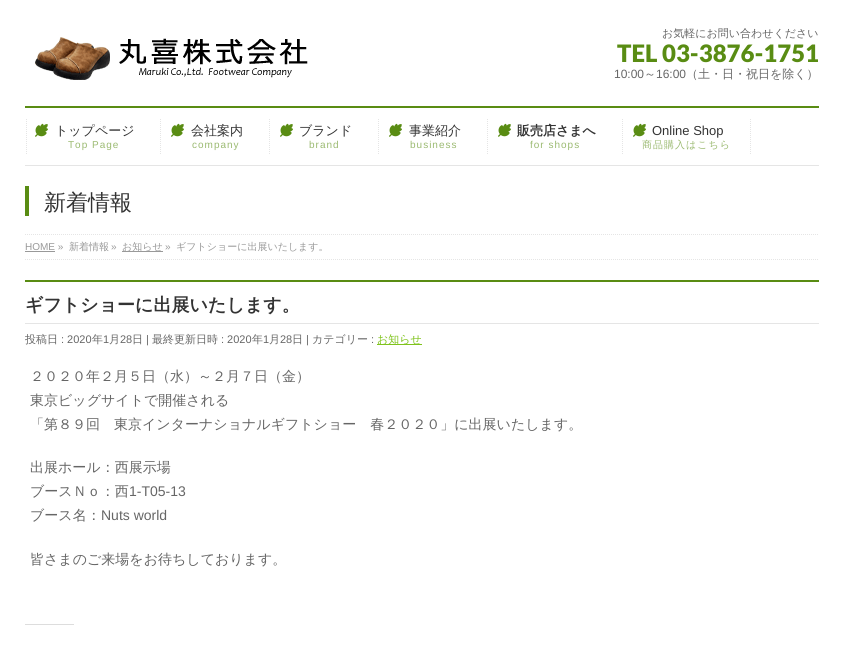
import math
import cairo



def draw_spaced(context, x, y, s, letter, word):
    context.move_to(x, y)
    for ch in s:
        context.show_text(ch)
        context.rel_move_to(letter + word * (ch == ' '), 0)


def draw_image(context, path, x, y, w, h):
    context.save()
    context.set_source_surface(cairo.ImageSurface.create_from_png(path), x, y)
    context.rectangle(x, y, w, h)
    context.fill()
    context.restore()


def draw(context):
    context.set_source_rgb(1, 1, 1)
    context.paint()
    draw_image(context, "images/1.png", 35, 37, 273, 43)
    context.set_source_rgb(89 / 255, 140 / 255, 19 / 255)
    context.rectangle(25, 106, 794, 2)
    context.fill()
    context.set_source_rgb(229 / 255, 229 / 255, 229 / 255)
    context.rectangle(25, 165, 794, 1)
    context.fill()
    context.new_path()
    context.move_to(26.5, 119)
    context.line_to(26.5, 154)
    context.set_line_width(1)
    context.set_dash([1, 1])
    context.stroke()
    draw_image(context, "images/2.png", 35, 123, 13, 14)
    context.new_path()
    context.move_to(160.5, 119)
    context.line_to(160.5, 154)
    context.stroke()
    draw_image(context, "images/2.png", 171, 123, 13, 14)
    context.new_path()
    context.move_to(269.5, 119)
    context.line_to(269.5, 154)
    context.stroke()
    draw_image(context, "images/2.png", 280, 123, 13, 14)
    context.new_path()
    context.move_to(378.5, 119)
    context.line_to(378.5, 154)
    context.stroke()
    draw_image(context, "images/2.png", 389, 123, 13, 14)
    context.new_path()
    context.move_to(487.5, 119)
    context.line_to(487.5, 154)
    context.stroke()
    draw_image(context, "images/2.png", 498, 123, 13, 14)
    context.new_path()
    context.move_to(622.5, 119)
    context.line_to(622.5, 154)
    context.stroke()
    draw_image(context, "images/2.png", 633, 123, 13, 14)
    context.new_path()
    context.move_to(750.5, 119)
    context.line_to(750.5, 154)
    context.stroke()
    context.set_source_rgb(89 / 255, 140 / 255, 19 / 255)
    context.rectangle(25, 186, 4, 30)
    context.fill()
    context.new_path()
    context.move_to(25, 234.5)
    context.line_to(819, 234.5)
    context.set_source_rgb(229 / 255, 229 / 255, 229 / 255)
    context.stroke()
    context.new_path()
    context.move_to(25, 259.5)
    context.line_to(819, 259.5)
    context.stroke()
    context.set_source_rgb(153 / 255, 153 / 255, 153 / 255)
    context.rectangle(25, 251, 30, 1)
    context.fill()
    context.rectangle(122, 251, 41, 1)
    context.fill()
    context.set_source_rgb(89 / 255, 140 / 255, 19 / 255)
    context.rectangle(25, 280, 794, 2)
    context.fill()
    context.set_source_rgb(229 / 255, 229 / 255, 229 / 255)
    context.rectangle(25, 323, 794, 1)
    context.fill()
    context.set_source_rgb(127 / 255, 195 / 255, 28 / 255)
    context.rectangle(377, 344, 45, 1)
    context.fill()
    context.set_source_rgb(221 / 255, 221 / 255, 221 / 255)
    context.rectangle(25, 624, 49, 1)
    context.fill()
    context.select_font_face("WenQuanYi Zen Hei Medium")
    context.set_font_size(11)
    context.set_source_rgb(102 / 255, 102 / 255, 102 / 255)
    context.move_to(662, 37)
    context.show_text("お気軽にお問い合わせください")
    context.select_font_face("Lato Black")
    context.set_font_size(24)
    context.set_source_rgb(89 / 255, 140 / 255, 19 / 255)
    context.move_to(617, 62)
    context.show_text("TEL 03-3876-1751")
    context.select_font_face("Liberation Sans")
    context.set_font_size(12)
    context.set_source_rgb(102 / 255, 102 / 255, 102 / 255)
    context.move_to(614, 78)
    context.show_text("10:00")
    context.select_font_face("WenQuanYi Zen Hei Medium")
    context.move_to(644, 78)
    context.show_text("～")
    context.select_font_face("Liberation Sans")
    context.move_to(656, 78)
    context.show_text("16:00")
    context.select_font_face("WenQuanYi Zen Hei Medium")
    context.move_to(686, 78)
    context.show_text("（土・日・祝日を除く）")
    context.set_font_size(13)
    context.set_source_rgb(51 / 255, 51 / 255, 51 / 255)
    context.move_to(55, 135)
    context.show_text("トップページ")
    context.select_font_face("Liberation Sans")
    context.set_font_size(10)
    context.set_source_rgb(155 / 255, 186 / 255, 113 / 255)
    draw_spaced(context, 68, 148, "Top Page", 1, 0)
    context.select_font_face("WenQuanYi Zen Hei Medium")
    context.set_font_size(13)
    context.set_source_rgb(51 / 255, 51 / 255, 51 / 255)
    context.move_to(191, 135)
    context.show_text("会社案内")
    context.select_font_face("Liberation Sans")
    context.set_font_size(10)
    context.set_source_rgb(155 / 255, 186 / 255, 113 / 255)
    draw_spaced(context, 192, 148, "company", 1, 0)
    context.select_font_face("WenQuanYi Zen Hei Medium")
    context.set_font_size(13)
    context.set_source_rgb(51 / 255, 51 / 255, 51 / 255)
    context.move_to(299, 135)
    context.show_text("ブランド")
    context.select_font_face("Liberation Sans")
    context.set_font_size(10)
    context.set_source_rgb(155 / 255, 186 / 255, 113 / 255)
    draw_spaced(context, 309, 148, "brand", 1, 0)
    context.select_font_face("WenQuanYi Zen Hei Medium")
    context.set_font_size(13)
    context.set_source_rgb(51 / 255, 51 / 255, 51 / 255)
    context.move_to(409, 135)
    context.show_text("事業紹介")
    context.select_font_face("Liberation Sans")
    context.set_font_size(10)
    context.set_source_rgb(155 / 255, 186 / 255, 113 / 255)
    draw_spaced(context, 410, 148, "business", 1, 0)
    context.select_font_face("WenQuanYi Zen Hei", cairo.FontSlant.NORMAL, cairo.FontWeight.BOLD)
    context.set_font_size(13)
    context.set_source_rgb(51 / 255, 51 / 255, 51 / 255)
    context.move_to(517, 135)
    context.show_text("販売店さまへ")
    context.select_font_face("Liberation Sans")
    context.set_font_size(10)
    context.set_source_rgb(155 / 255, 186 / 255, 113 / 255)
    draw_spaced(context, 530, 148, "for shops", 1, 0)
    context.set_font_size(13)
    context.set_source_rgb(51 / 255, 51 / 255, 51 / 255)
    context.move_to(652, 135)
    context.show_text("Online Shop")
    context.select_font_face("WenQuanYi Zen Hei Medium")
    context.set_font_size(10)
    context.set_source_rgb(155 / 255, 186 / 255, 113 / 255)
    draw_spaced(context, 642, 148, "商品購入はこちら", 1, 0)
    context.set_font_size(22)
    context.set_source_rgb(51 / 255, 51 / 255, 51 / 255)
    context.move_to(44, 210)
    context.show_text("新着情報")
    context.select_font_face("Liberation Sans")
    context.set_font_size(10)
    context.set_source_rgb(153 / 255, 153 / 255, 153 / 255)
    context.move_to(25, 250)
    context.show_text("HOME »")
    context.select_font_face("WenQuanYi Zen Hei Medium")
    context.move_to(69, 250)
    context.show_text("新着情報")
    context.select_font_face("Liberation Sans")
    context.move_to(111, 250)
    context.show_text("»")
    context.select_font_face("WenQuanYi Zen Hei Medium")
    context.move_to(122, 250)
    context.show_text("お知らせ")
    context.select_font_face("Liberation Sans")
    context.move_to(165, 250)
    context.show_text("»")
    context.select_font_face("WenQuanYi Zen Hei Medium")
    context.move_to(176, 250)
    context.show_text("ギフトショーに出展いたします。")
    context.select_font_face("WenQuanYi Zen Hei", cairo.FontSlant.NORMAL, cairo.FontWeight.BOLD)
    context.set_font_size(18)
    context.set_source_rgb(51 / 255, 51 / 255, 51 / 255)
    context.move_to(25, 311)
    context.show_text("ギフトショーに出展いたします。")
    context.select_font_face("WenQuanYi Zen Hei Medium")
    context.set_font_size(11)
    context.set_source_rgb(102 / 255, 102 / 255, 102 / 255)
    context.move_to(25, 343)
    context.show_text("投稿日")
    context.select_font_face("Liberation Sans")
    context.move_to(61, 343)
    context.show_text(": 2020")
    context.select_font_face("WenQuanYi Zen Hei Medium")
    context.move_to(92, 343)
    context.show_text("年")
    context.select_font_face("Liberation Sans")
    context.move_to(103, 343)
    context.show_text("1")
    context.select_font_face("WenQuanYi Zen Hei Medium")
    context.move_to(109, 343)
    context.show_text("月")
    context.select_font_face("Liberation Sans")
    context.move_to(120, 343)
    context.show_text("28")
    context.select_font_face("WenQuanYi Zen Hei Medium")
    context.move_to(132, 343)
    context.show_text("日")
    context.select_font_face("Liberation Sans")
    context.move_to(146, 343)
    context.show_text("|")
    context.select_font_face("WenQuanYi Zen Hei Medium")
    context.move_to(152, 343)
    context.show_text("最終更新日時")
    context.select_font_face("Liberation Sans")
    context.move_to(221, 343)
    context.show_text(": 2020")
    context.select_font_face("WenQuanYi Zen Hei Medium")
    context.move_to(252, 343)
    context.show_text("年")
    context.select_font_face("Liberation Sans")
    context.move_to(263, 343)
    context.show_text("1")
    context.select_font_face("WenQuanYi Zen Hei Medium")
    context.move_to(269, 343)
    context.show_text("月")
    context.select_font_face("Liberation Sans")
    context.move_to(280, 343)
    context.show_text("28")
    context.select_font_face("WenQuanYi Zen Hei Medium")
    context.move_to(292, 343)
    context.show_text("日")
    context.select_font_face("Liberation Sans")
    context.move_to(306, 343)
    context.show_text("|")
    context.select_font_face("WenQuanYi Zen Hei Medium")
    context.move_to(312, 343)
    context.show_text("カテゴリー")
    context.select_font_face("Liberation Sans")
    context.move_to(371, 343)
    context.show_text(":")
    context.select_font_face("WenQuanYi Zen Hei Medium")
    context.set_source_rgb(127 / 255, 195 / 255, 28 / 255)
    context.move_to(377, 343)
    context.show_text("お知らせ")
    context.set_font_size(14)
    context.set_source_rgb(102 / 255, 102 / 255, 102 / 255)
    context.move_to(30, 381)
    context.show_text("２０２０年２月５日（水）～２月７日（金）")
    context.move_to(30, 405)
    context.show_text("東京ビッグサイトで開催される")
    context.move_to(30, 429)
    context.show_text("「第８９回　東京インターナショナルギフトショー　春２０２０」に出展いたします。")
    context.move_to(30, 472)
    context.show_text("出展ホール：西展示場")
    context.move_to(30, 496)
    context.show_text("ブースＮｏ：西")
    context.select_font_face("Liberation Sans")
    context.move_to(129, 496)
    context.show_text("1-T05-13")
    context.select_font_face("WenQuanYi Zen Hei Medium")
    context.move_to(30, 520)
    context.show_text("ブース名：")
    context.select_font_face("Liberation Sans")
    context.move_to(101, 520)
    context.show_text("Nuts world")
    context.select_font_face("WenQuanYi Zen Hei Medium")
    context.move_to(30, 564)
    context.show_text("皆さまのご来場をお待ちしております。")


surface = cairo.ImageSurface(cairo.Format.RGB24, 844, 648)
context = cairo.Context(surface)
options = cairo.FontOptions()
options.set_hint_metrics(cairo.HintMetrics.OFF)
options.set_hint_style(cairo.HintStyle.NONE)
context.set_font_options(options)
context.set_miter_limit(4)
draw(context)
surface.write_to_png("out.png")
